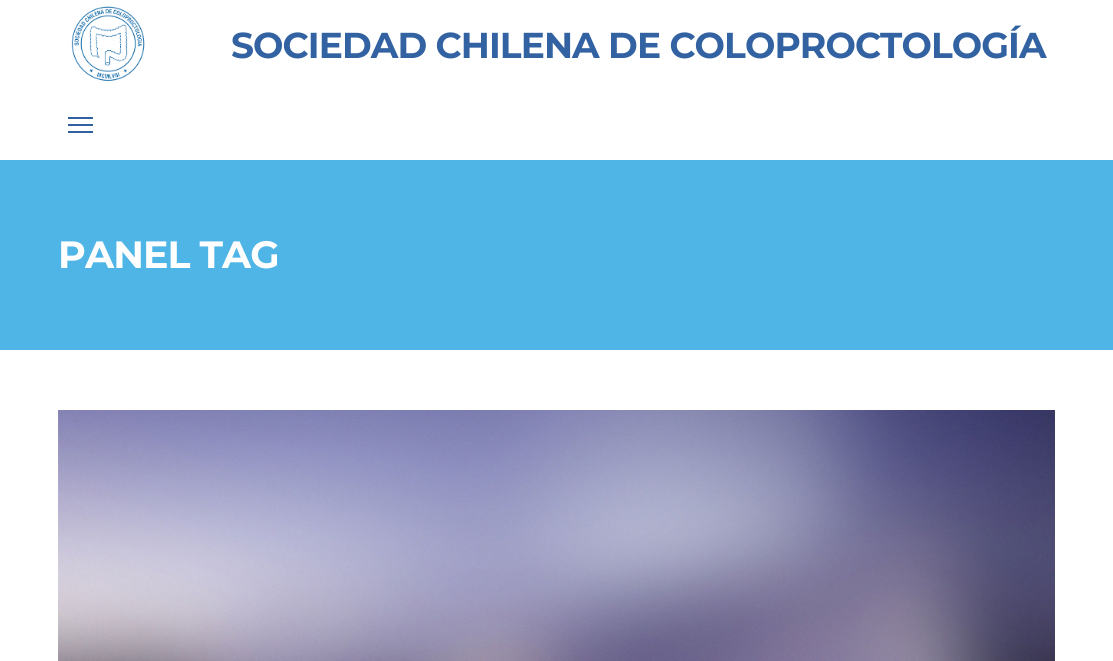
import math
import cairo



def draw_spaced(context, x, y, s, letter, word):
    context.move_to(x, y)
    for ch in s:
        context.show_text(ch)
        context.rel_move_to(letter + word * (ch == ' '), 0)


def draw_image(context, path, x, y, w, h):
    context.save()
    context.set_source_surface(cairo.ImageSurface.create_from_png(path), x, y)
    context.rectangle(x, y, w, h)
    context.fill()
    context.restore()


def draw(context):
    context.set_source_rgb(1, 1, 1)
    context.paint()
    draw_image(context, "images/1.png", 71, 6, 74, 76)
    context.set_source_rgb(49 / 255, 96 / 255, 159 / 255)
    context.rectangle(68, 124, 25, 2)
    context.fill()
    context.rectangle(68, 117, 25, 2)
    context.fill()
    context.rectangle(68, 131, 25, 2)
    context.fill()
    context.set_source_rgb(78 / 255, 181 / 255, 230 / 255)
    context.rectangle(0, 160, 1113, 190)
    context.fill()
    draw_image(context, "images/2.png", 58, 410, 997, 251)
    context.select_font_face("Montserrat", cairo.FontSlant.NORMAL, cairo.FontWeight.BOLD)
    context.set_font_size(36)
    context.set_source_rgb(50 / 255, 98 / 255, 161 / 255)
    draw_spaced(context, 231, 58, "SOCIEDAD CHILENA DE COLOPROCTOLOGÍA", -0.9, 0)
    context.set_font_size(38)
    context.set_source_rgb(254 / 255, 254 / 255, 254 / 255)
    draw_spaced(context, 58, 268, "PANEL TAG", -0.9, 0)


surface = cairo.ImageSurface(cairo.Format.RGB24, 1113, 661)
context = cairo.Context(surface)
options = cairo.FontOptions()
options.set_hint_metrics(cairo.HintMetrics.OFF)
options.set_hint_style(cairo.HintStyle.NONE)
context.set_font_options(options)
context.set_miter_limit(4)
draw(context)
surface.write_to_png("out.png")
